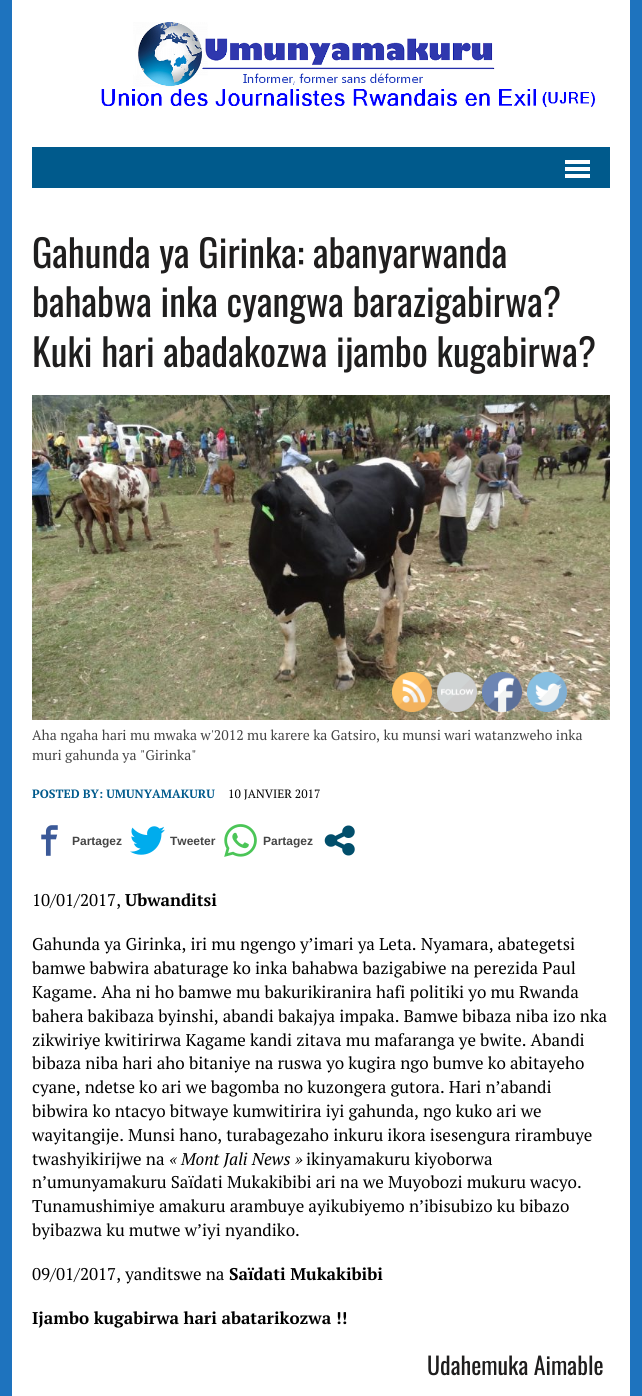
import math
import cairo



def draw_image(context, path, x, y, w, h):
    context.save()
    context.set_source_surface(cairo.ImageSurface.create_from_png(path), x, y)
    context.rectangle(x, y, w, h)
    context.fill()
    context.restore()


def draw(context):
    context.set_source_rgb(30 / 255, 115 / 255, 190 / 255)
    context.paint()
    context.set_source_rgb(1, 1, 1)
    context.rectangle(12, 0, 618, 1396)
    context.fill()
    draw_image(context, "images/1.png", 101, 22, 494, 85)
    context.set_source_rgb(0, 90 / 255, 140 / 255)
    context.rectangle(32, 147, 578, 41)
    context.fill()
    context.set_source_rgb(1, 1, 1)
    context.rectangle(565, 160, 25, 4)
    context.fill()
    context.rectangle(565, 167, 25, 4)
    context.fill()
    context.rectangle(565, 174, 25, 4)
    context.fill()
    draw_image(context, "images/2.png", 32, 395, 578, 325)
    draw_image(context, "images/3.png", 41, 825, 17, 31)
    draw_image(context, "images/4.png", 130, 826, 35, 29)
    draw_image(context, "images/5.png", 224, 824, 33, 33)
    draw_image(context, "images/6.png", 324, 825, 31, 31)
    draw_image(context, "images/7.png", 392, 672, 40, 40)
    draw_image(context, "images/8.png", 437, 672, 40, 40)
    draw_image(context, "images/9.png", 482, 672, 40, 40)
    draw_image(context, "images/10.png", 527, 672, 40, 40)
    context.select_font_face("Oswald")
    context.set_font_size(38)
    context.set_source_rgb(31 / 255, 30 / 255, 30 / 255)
    context.move_to(32, 268)
    context.show_text("Gahunda ya Girinka: abanyarwanda")
    context.move_to(32, 317)
    context.show_text("bahabwa inka cyangwa barazigabirwa?")
    context.move_to(32, 367)
    context.show_text("Kuki hari abadakozwa ijambo kugabirwa?")
    context.select_font_face("PT Serif")
    context.set_font_size(14)
    context.set_source_rgb(69 / 255, 69 / 255, 69 / 255)
    context.move_to(32, 740)
    context.show_text("Aha ngaha hari mu mwaka w'2012 mu karere ka Gatsiro, ku munsi wari watanzweho inka")
    context.move_to(32, 760)
    context.show_text("muri gahunda ya \"Girinka\"")
    context.select_font_face("PT Serif", cairo.FontSlant.NORMAL, cairo.FontWeight.BOLD)
    context.set_font_size(12)
    context.set_source_rgb(0, 90 / 255, 140 / 255)
    context.move_to(32, 798)
    context.show_text("POSTED BY: UMUNYAMAKURU")
    context.select_font_face("PT Serif")
    context.set_source_rgb(0, 0, 0)
    context.move_to(228, 798)
    context.show_text("10 JANVIER 2017")
    context.select_font_face("Liberation Sans", cairo.FontSlant.NORMAL, cairo.FontWeight.BOLD)
    context.set_source_rgb(69 / 255, 69 / 255, 69 / 255)
    context.move_to(72, 845)
    context.show_text("Partagez")
    context.move_to(170, 845)
    context.show_text("Tweeter")
    context.move_to(263, 845)
    context.show_text("Partagez")
    context.select_font_face("PT Serif")
    context.set_font_size(17)
    context.set_source_rgb(0, 0, 0)
    context.move_to(32, 906)
    context.show_text("10/01/2017,")
    context.select_font_face("PT Serif", cairo.FontSlant.NORMAL, cairo.FontWeight.BOLD)
    context.move_to(125, 906)
    context.show_text("Ubwanditsi")
    context.select_font_face("PT Serif")
    context.move_to(32, 950)
    context.show_text("Gahunda ya Girinka, iri mu ngengo y’imari ya Leta. Nyamara, abategetsi")
    context.move_to(32, 974)
    context.show_text("bamwe babwira abaturage ko inka bahabwa bazigabiwe na perezida Paul")
    context.move_to(32, 998)
    context.show_text("Kagame. Aha ni ho bamwe mu bakurikiranira hafi politiki yo mu Rwanda")
    context.move_to(32, 1022)
    context.show_text("bahera bakibaza byinshi, abandi bakajya impaka. Bamwe bibaza niba izo nka")
    context.move_to(32, 1046)
    context.show_text("zikwiriye kwitirirwa Kagame kandi zitava mu mafaranga ye bwite. Abandi")
    context.move_to(32, 1069)
    context.show_text("bibaza niba hari aho bitaniye na ruswa yo kugira ngo bumve ko abitayeho")
    context.move_to(32, 1093)
    context.show_text("cyane, ndetse ko ari we bagomba no kuzongera gutora. Hari n’abandi")
    context.move_to(32, 1117)
    context.show_text("bibwira ko ntacyo bitwaye kumwitirira iyi gahunda, ngo kuko ari we")
    context.move_to(32, 1141)
    context.show_text("wayitangije. Munsi hano, turabagezaho inkuru ikora isesengura rirambuye")
    context.move_to(32, 1165)
    context.show_text("twashyikirijwe na")
    context.select_font_face("PT Serif", cairo.FontSlant.ITALIC)
    context.move_to(169, 1165)
    context.show_text("« Mont Jali News »")
    context.select_font_face("PT Serif")
    context.move_to(306, 1165)
    context.show_text("ikinyamakuru kiyoborwa")
    context.move_to(32, 1188)
    context.show_text("n’umunyamakuru Saïdati Mukakibibi ari na we Muyobozi mukuru wacyo.")
    context.move_to(32, 1212)
    context.show_text("Tunamushimiye amakuru arambuye ayikubiyemo n’ibisubizo ku bibazo")
    context.move_to(32, 1236)
    context.show_text("byibazwa ku mutwe w’iyi nyandiko.")
    context.move_to(32, 1280)
    context.show_text("09/01/2017, yanditswe na")
    context.select_font_face("PT Serif", cairo.FontSlant.NORMAL, cairo.FontWeight.BOLD)
    context.move_to(229, 1280)
    context.show_text("Saïdati Mukakibibi")
    context.move_to(32, 1324)
    context.show_text("Ijambo kugabirwa hari abatarikozwa !!")
    context.select_font_face("Oswald")
    context.set_font_size(24)
    context.set_source_rgb(31 / 255, 30 / 255, 30 / 255)
    context.move_to(427, 1375)
    context.show_text("Udahemuka Aimable")


surface = cairo.ImageSurface(cairo.Format.RGB24, 642, 1396)
context = cairo.Context(surface)
options = cairo.FontOptions()
options.set_hint_metrics(cairo.HintMetrics.OFF)
options.set_hint_style(cairo.HintStyle.NONE)
context.set_font_options(options)
context.set_miter_limit(4)
draw(context)
surface.write_to_png("out.png")
